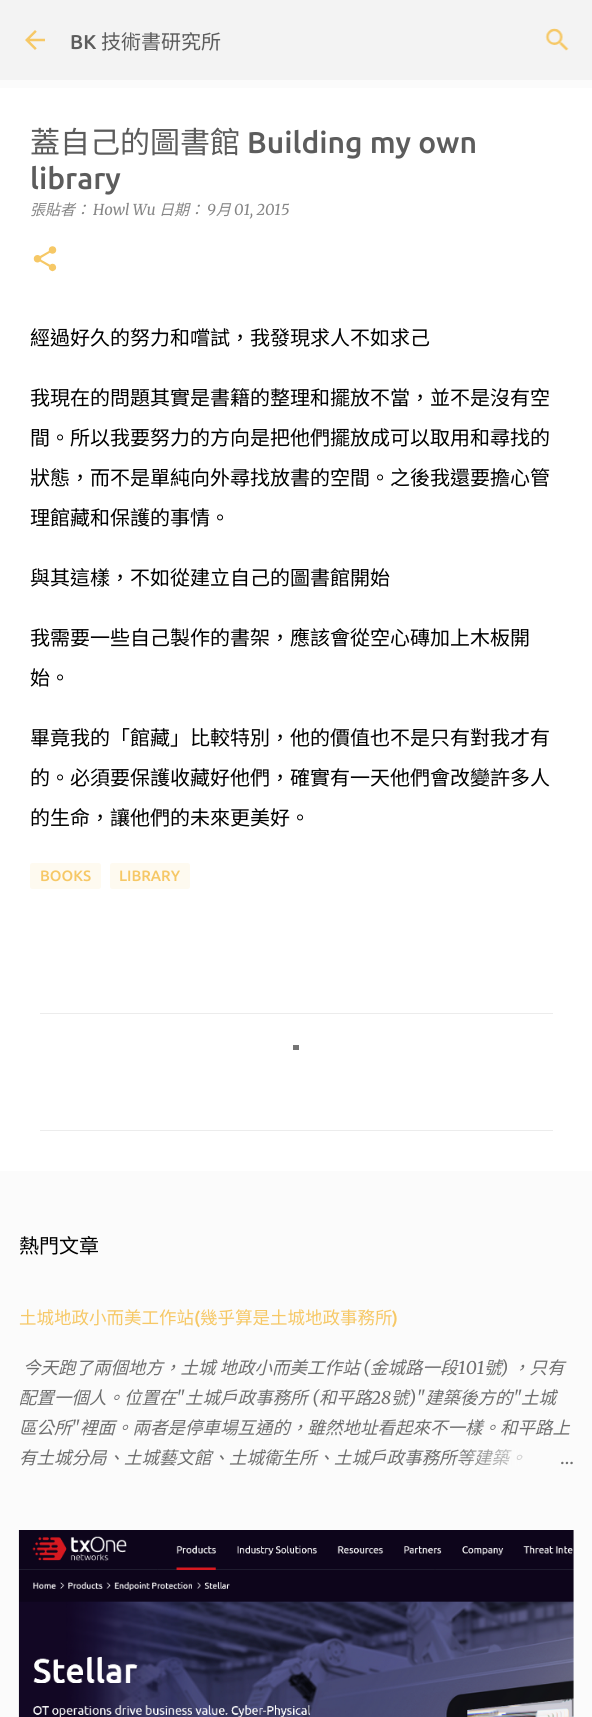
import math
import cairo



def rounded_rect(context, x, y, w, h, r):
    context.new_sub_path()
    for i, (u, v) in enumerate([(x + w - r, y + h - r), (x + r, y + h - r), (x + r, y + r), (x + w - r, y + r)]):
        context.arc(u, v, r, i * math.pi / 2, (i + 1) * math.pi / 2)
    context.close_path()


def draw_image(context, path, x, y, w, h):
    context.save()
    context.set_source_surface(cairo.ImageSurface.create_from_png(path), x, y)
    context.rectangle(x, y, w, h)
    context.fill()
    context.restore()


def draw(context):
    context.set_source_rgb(251 / 255, 251 / 255, 251 / 255)
    context.paint()
    context.set_source_rgb(243 / 255, 243 / 255, 243 / 255)
    context.rectangle(0, 0, 592, 80)
    context.fill()
    draw_image(context, "images/1.png", 25, 30, 20, 20)
    draw_image(context, "images/2.png", 545, 28, 24, 23)
    context.set_source_rgb(1, 1, 1)
    context.rectangle(0, 88, 592, 1083)
    context.fill()
    draw_image(context, "images/3.png", 33, 246, 24, 26)
    context.set_source_rgb(254 / 255, 250 / 255, 240 / 255)
    rounded_rect(context, 30, 863, 71, 26, 2.5)
    context.fill()
    rounded_rect(context, 110, 863, 80, 26, 2.5)
    context.fill()
    context.set_source_rgb(236 / 255, 236 / 255, 236 / 255)
    context.rectangle(40, 1013, 513, 1)
    context.fill()
    context.rectangle(40, 1130, 513, 1)
    context.fill()
    draw_image(context, "images/4.png", 18, 1530, 556, 187)
    context.set_source_rgb(117 / 255, 117 / 255, 117 / 255)
    context.rectangle(293, 1045, 6, 5)
    context.fill()
    context.select_font_face("Ubuntu Medium")
    context.set_font_size(20)
    context.set_source_rgb(92 / 255, 92 / 255, 92 / 255)
    context.move_to(70, 49)
    context.show_text("BK")
    context.select_font_face("Noto Sans CJK TC")
    context.move_to(101, 49)
    context.show_text("技術書研究所")
    context.set_font_size(30)
    context.move_to(30, 153)
    context.show_text("蓋自己的圖書館")
    context.select_font_face("Ubuntu Medium")
    context.move_to(247, 153)
    context.show_text("Building my own")
    context.move_to(30, 189)
    context.show_text("library")
    context.select_font_face("Noto Sans CJK TC", cairo.FontSlant.ITALIC)
    context.set_font_size(15)
    context.set_source_rgb(133 / 255, 133 / 255, 133 / 255)
    context.move_to(30, 215)
    context.show_text("張貼者：")
    context.select_font_face("Merriweather", cairo.FontSlant.ITALIC)
    context.move_to(93, 215)
    context.show_text("Howl Wu")
    context.select_font_face("Noto Sans CJK TC", cairo.FontSlant.ITALIC)
    context.move_to(159, 215)
    context.show_text("日期：")
    context.select_font_face("Merriweather", cairo.FontSlant.ITALIC)
    context.move_to(207, 215)
    context.show_text("9")
    context.select_font_face("Noto Sans CJK TC", cairo.FontSlant.ITALIC)
    context.move_to(216, 215)
    context.show_text("月")
    context.select_font_face("Merriweather", cairo.FontSlant.ITALIC)
    context.move_to(234, 215)
    context.show_text("01, 2015")
    context.select_font_face("Noto Sans CJK TC")
    context.set_font_size(20)
    context.set_source_rgb(0, 0, 0)
    context.move_to(30, 345)
    context.show_text("經過好久的努力和嚐試，我發現求人不如求己")
    context.move_to(30, 405)
    context.show_text("我現在的問題其實是書籍的整理和擺放不當，並不是沒有空")
    context.move_to(30, 445)
    context.show_text("間。所以我要努力的方向是把他們擺放成可以取用和尋找的")
    context.move_to(30, 485)
    context.show_text("狀態，而不是單純向外尋找放書的空間。之後我還要擔心管")
    context.move_to(30, 525)
    context.show_text("理館藏和保護的事情。")
    context.move_to(30, 585)
    context.show_text("與其這樣，不如從建立自己的圖書館開始")
    context.move_to(30, 645)
    context.show_text("我需要一些自己製作的書架，應該會從空心磚加上木板開")
    context.move_to(30, 685)
    context.show_text("始。")
    context.move_to(30, 745)
    context.show_text("畢竟我的「館藏」比較特別，他的價值也不是只有對我才有")
    context.move_to(30, 785)
    context.show_text("的。必須要保護收藏好他們，確實有一天他們會改變許多人")
    context.move_to(30, 825)
    context.show_text("的生命，讓他們的未來更美好。")
    context.select_font_face("Ubuntu Medium")
    context.set_font_size(15)
    context.set_source_rgb(246 / 255, 200 / 255, 102 / 255)
    context.move_to(40, 881)
    context.show_text("BOOKS")
    context.move_to(119, 881)
    context.show_text("LIBRARY")
    context.select_font_face("Noto Sans CJK TC")
    context.set_font_size(20)
    context.set_source_rgb(0, 0, 0)
    context.move_to(19, 1253)
    context.show_text("熱門文章")
    context.set_font_size(17.5)
    context.set_source_rgb(246 / 255, 200 / 255, 102 / 255)
    context.move_to(19, 1324)
    context.show_text("土城地政小而美工作站")
    context.select_font_face("Ubuntu Medium")
    context.move_to(194, 1324)
    context.show_text("(")
    context.select_font_face("Noto Sans CJK TC")
    context.move_to(200, 1324)
    context.show_text("幾乎算是土城地政事務所")
    context.select_font_face("Ubuntu Medium")
    context.move_to(392, 1324)
    context.show_text(")")
    context.select_font_face("Noto Sans CJK TC", cairo.FontSlant.ITALIC)
    context.set_source_rgb(110 / 255, 110 / 255, 110 / 255)
    context.move_to(23, 1374)
    context.show_text("今天跑了兩個地方，土城 地政小而美工作站")
    context.select_font_face("Merriweather", cairo.FontSlant.ITALIC)
    context.move_to(363, 1374)
    context.show_text("(")
    context.select_font_face("Noto Sans CJK TC", cairo.FontSlant.ITALIC)
    context.move_to(370, 1374)
    context.show_text("金城路一段")
    context.select_font_face("Merriweather", cairo.FontSlant.ITALIC)
    context.move_to(458, 1374)
    context.show_text("101")
    context.select_font_face("Noto Sans CJK TC", cairo.FontSlant.ITALIC)
    context.move_to(484, 1374)
    context.show_text("號")
    context.select_font_face("Merriweather", cairo.FontSlant.ITALIC)
    context.move_to(501, 1374)
    context.show_text(")")
    context.select_font_face("Noto Sans CJK TC", cairo.FontSlant.ITALIC)
    context.move_to(512, 1374)
    context.show_text("，只有")
    context.move_to(19, 1404)
    context.show_text("配置一個人。位置在")
    context.select_font_face("Merriweather", cairo.FontSlant.ITALIC)
    context.move_to(176, 1404)
    context.show_text("\"")
    context.select_font_face("Noto Sans CJK TC", cairo.FontSlant.ITALIC)
    context.move_to(185, 1404)
    context.show_text("土城戶政事務所")
    context.select_font_face("Merriweather", cairo.FontSlant.ITALIC)
    context.move_to(312, 1404)
    context.show_text("(")
    context.select_font_face("Noto Sans CJK TC", cairo.FontSlant.ITALIC)
    context.move_to(319, 1404)
    context.show_text("和平路")
    context.select_font_face("Merriweather", cairo.FontSlant.ITALIC)
    context.move_to(371, 1404)
    context.show_text("28")
    context.select_font_face("Noto Sans CJK TC", cairo.FontSlant.ITALIC)
    context.move_to(391, 1404)
    context.show_text("號")
    context.select_font_face("Merriweather", cairo.FontSlant.ITALIC)
    context.move_to(409, 1404)
    context.show_text(")\"")
    context.select_font_face("Noto Sans CJK TC", cairo.FontSlant.ITALIC)
    context.move_to(425, 1404)
    context.show_text("建築後方的")
    context.select_font_face("Merriweather", cairo.FontSlant.ITALIC)
    context.move_to(513, 1404)
    context.show_text("\"")
    context.select_font_face("Noto Sans CJK TC", cairo.FontSlant.ITALIC)
    context.move_to(521, 1404)
    context.show_text("土城")
    context.move_to(19, 1434)
    context.show_text("區公所")
    context.select_font_face("Merriweather", cairo.FontSlant.ITALIC)
    context.move_to(71, 1434)
    context.show_text("\"")
    context.select_font_face("Noto Sans CJK TC", cairo.FontSlant.ITALIC)
    context.move_to(80, 1434)
    context.show_text("裡面。兩者是停車場互通的，雖然地址看起來不一樣。和平路上")
    context.move_to(19, 1464)
    context.show_text("有土城分局、土城藝文館、土城衛生所、土城戶政事務所等建築。")
    gradient = cairo.LinearGradient(574, 1458, 454, 1458)
    gradient.add_color_stop_rgba(0, 251 / 255, 251 / 255, 251 / 255, 1)
    gradient.add_color_stop_rgba(0.2, 251 / 255, 251 / 255, 251 / 255, 1)
    gradient.add_color_stop_rgba(1, 251 / 255, 251 / 255, 251 / 255, 0)
    context.set_source(gradient)
    context.rectangle(456, 1449, 66, 17)
    context.fill()
    context.select_font_face("Merriweather Light")
    context.set_source_rgb(110 / 255, 110 / 255, 110 / 255)
    context.move_to(560, 1464)
    context.show_text("…")


surface = cairo.ImageSurface(cairo.Format.RGB24, 592, 1717)
context = cairo.Context(surface)
options = cairo.FontOptions()
options.set_hint_metrics(cairo.HintMetrics.OFF)
options.set_hint_style(cairo.HintStyle.NONE)
context.set_font_options(options)
context.set_miter_limit(4)
draw(context)
surface.write_to_png("out.png")
